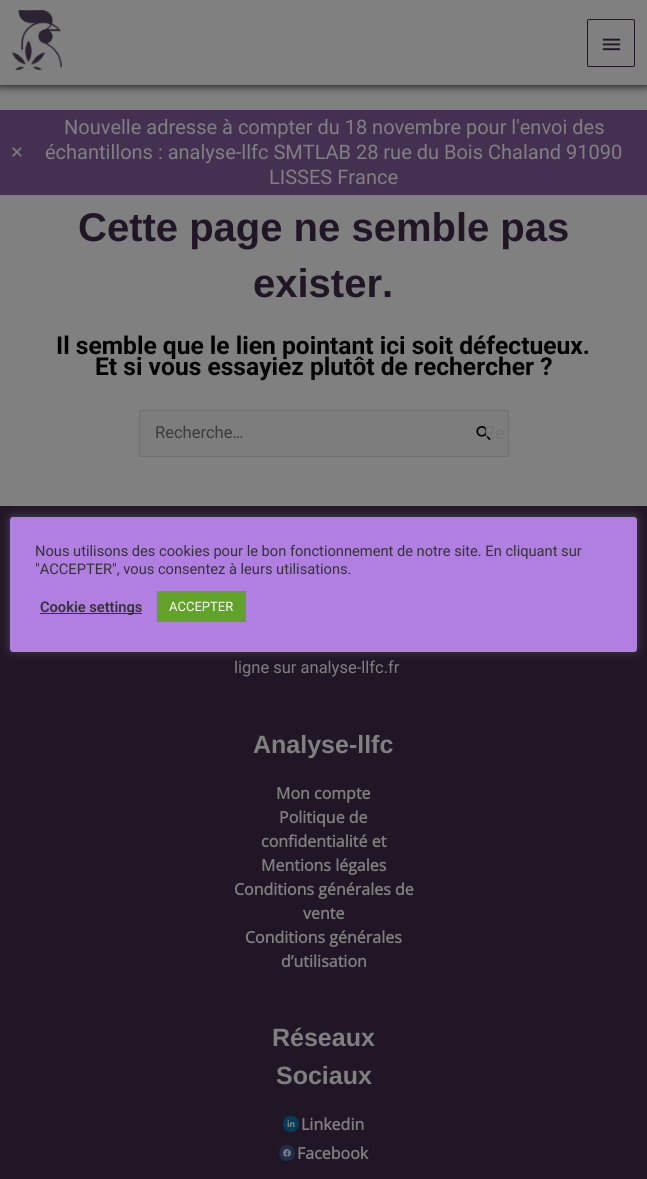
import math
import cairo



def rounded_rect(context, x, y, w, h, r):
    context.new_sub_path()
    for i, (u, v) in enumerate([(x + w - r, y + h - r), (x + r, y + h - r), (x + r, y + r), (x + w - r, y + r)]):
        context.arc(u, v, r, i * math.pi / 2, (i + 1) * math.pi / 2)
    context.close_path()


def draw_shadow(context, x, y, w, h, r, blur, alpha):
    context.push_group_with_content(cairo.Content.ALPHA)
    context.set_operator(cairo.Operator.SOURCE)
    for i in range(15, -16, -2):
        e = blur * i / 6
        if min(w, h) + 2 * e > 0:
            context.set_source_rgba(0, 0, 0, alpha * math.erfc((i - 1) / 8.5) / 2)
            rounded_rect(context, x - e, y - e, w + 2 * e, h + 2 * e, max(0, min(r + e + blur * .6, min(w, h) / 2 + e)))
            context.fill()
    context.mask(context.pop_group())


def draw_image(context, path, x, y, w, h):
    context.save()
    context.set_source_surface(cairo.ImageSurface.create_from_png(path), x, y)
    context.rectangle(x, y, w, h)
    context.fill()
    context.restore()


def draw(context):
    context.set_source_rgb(128 / 255, 128 / 255, 128 / 255)
    context.paint()
    context.set_source_rgb(68 / 255, 49 / 255, 81 / 255)
    context.rectangle(0, 110, 647, 85)
    context.fill()
    context.save()
    context.rectangle(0, 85, 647, 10)
    context.clip()
    context.set_source_rgb(0, 0, 0)
    draw_shadow(context, 0, 0, 647, 85, 0, 5, 1)
    context.restore()
    draw_image(context, "images/1.png", 12, 10, 50, 60)
    rounded_rect(context, 587.5, 19.5, 47, 47, 1.5)
    context.set_source_rgb(33 / 255, 22 / 255, 38 / 255)
    context.set_line_width(1)
    context.stroke()
    draw_image(context, "images/2.png", 602, 38, 19, 13)
    context.set_source_rgb(125 / 255, 125 / 255, 125 / 255)
    rounded_rect(context, 139.5, 410.5, 369, 46, 1.5)
    context.fill_preserve()
    context.set_source_rgb(111 / 255, 111 / 255, 111 / 255)
    context.stroke()
    draw_image(context, "images/3.png", 476, 426, 15, 15)
    context.set_source_rgb(33 / 255, 22 / 255, 38 / 255)
    context.rectangle(0, 506, 647, 673)
    context.fill()
    context.set_source_rgb(0, 62 / 255, 91 / 255)
    context.arc(291, 1124, 8, 0, 2 * math.pi)
    context.fill()
    draw_image(context, "images/4.png", 287, 1120, 8, 7)
    context.set_source_rgb(30 / 255, 45 / 255, 76 / 255)
    context.arc(287, 1153, 8, 0, 2 * math.pi)
    context.fill()
    draw_image(context, "images/5.png", 283, 1149, 8, 8)
    context.set_source_rgb(172 / 255, 171 / 255, 171 / 255)
    draw_shadow(context, 10, 516, 627, 135, 3, 5, 0.3)
    context.set_source_rgb(177 / 255, 127 / 255, 226 / 255)
    rounded_rect(context, 10, 517, 627, 135, 3)
    context.fill()
    context.set_source_rgb(51 / 255, 51 / 255, 51 / 255)
    context.rectangle(40, 613, 102, 1)
    context.fill()
    context.set_source_rgb(97 / 255, 162 / 255, 41 / 255)
    context.rectangle(157, 591, 89, 31)
    context.fill()
    context.select_font_face("DejaVu Sans")
    context.set_font_size(16.5)
    context.set_source_rgb(128 / 255, 128 / 255, 128 / 255)
    context.move_to(10, 158)
    context.show_text("✕")
    context.select_font_face("Roboto")
    context.set_font_size(20)
    context.move_to(64, 134)
    context.show_text("Nouvelle adresse à compter du 18 novembre pour l'envoi des")
    context.move_to(45, 159)
    context.show_text("échantillons : analyse-llfc SMTLAB 28 rue du Bois Chaland 91090")
    context.move_to(269, 184)
    context.show_text("LISSES France")
    context.select_font_face("Liberation Sans", cairo.FontSlant.NORMAL, cairo.FontWeight.BOLD)
    context.set_font_size(40)
    context.set_source_rgb(33 / 255, 22 / 255, 38 / 255)
    context.move_to(78, 241)
    context.show_text("Cette page ne semble pas")
    context.move_to(253, 297)
    context.show_text("exister.")
    context.select_font_face("Roboto", cairo.FontSlant.NORMAL, cairo.FontWeight.BOLD)
    context.set_font_size(24.6)
    context.set_source_rgb(0, 0, 0)
    context.move_to(56, 354)
    context.show_text("Il semble que le lien pointant ici soit défectueux.")
    context.move_to(95, 375)
    context.show_text("Et si vous essayiez plutôt de rechercher ?")
    context.select_font_face("Roboto")
    context.set_font_size(16.5)
    context.set_source_rgb(59 / 255, 59 / 255, 59 / 255)
    context.move_to(155, 438)
    context.show_text("Recherche…")
    context.select_font_face("Open Sans")
    context.set_font_size(18)
    context.set_source_rgb(114 / 255, 114 / 255, 114 / 255)
    context.move_to(484, 439)
    context.show_text("Re")
    context.select_font_face("Roboto")
    context.set_font_size(16.5)
    context.set_source_rgb(128 / 255, 128 / 255, 128 / 255)
    context.move_to(234, 673)
    context.show_text("ligne sur analyse-llfc.fr")
    context.select_font_face("Liberation Sans", cairo.FontSlant.NORMAL, cairo.FontWeight.BOLD)
    context.set_font_size(25)
    context.move_to(253, 753)
    context.show_text("Analyse-llfc")
    context.select_font_face("Open Sans", cairo.FontSlant.NORMAL, cairo.FontWeight.BOLD)
    context.set_font_size(16)
    context.move_to(276, 799)
    context.show_text("Mon compte")
    context.move_to(279, 823)
    context.show_text("Politique de")
    context.move_to(261, 847)
    context.show_text("confidentialité et")
    context.move_to(261, 871)
    context.show_text("Mentions légales")
    context.move_to(234, 895)
    context.show_text("Conditions générales de")
    context.move_to(303, 919)
    context.show_text("vente")
    context.move_to(245, 943)
    context.show_text("Conditions générales")
    context.move_to(281, 967)
    context.show_text("d’utilisation")
    context.select_font_face("Liberation Sans", cairo.FontSlant.NORMAL, cairo.FontWeight.BOLD)
    context.set_font_size(25)
    context.move_to(272, 1046)
    context.show_text("Réseaux")
    context.move_to(276, 1084)
    context.show_text("Sociaux")
    context.select_font_face("Open Sans", cairo.FontSlant.NORMAL, cairo.FontWeight.BOLD)
    context.set_font_size(16)
    context.move_to(301, 1130)
    context.show_text("Linkedin")
    context.move_to(297, 1159)
    context.show_text("Facebook")
    context.select_font_face("Roboto")
    context.set_font_size(14.65)
    context.set_source_rgb(51 / 255, 51 / 255, 51 / 255)
    context.move_to(35, 556)
    context.show_text("Nous utilisons des cookies pour le bon fonctionnement de notre site. En cliquant sur")
    context.move_to(35, 574)
    context.show_text("\"ACCEPTER\", vous consentez à leurs utilisations.")
    context.select_font_face("Roboto SemiBold")
    context.move_to(40, 612)
    context.show_text("Cookie settings")
    context.select_font_face("Roboto")
    context.set_font_size(13)
    context.set_source_rgb(1, 1, 1)
    context.move_to(169, 611)
    context.show_text("ACCEPTER")


surface = cairo.ImageSurface(cairo.Format.RGB24, 647, 1179)
context = cairo.Context(surface)
options = cairo.FontOptions()
options.set_hint_metrics(cairo.HintMetrics.OFF)
options.set_hint_style(cairo.HintStyle.NONE)
context.set_font_options(options)
context.set_miter_limit(4)
draw(context)
surface.write_to_png("out.png")
